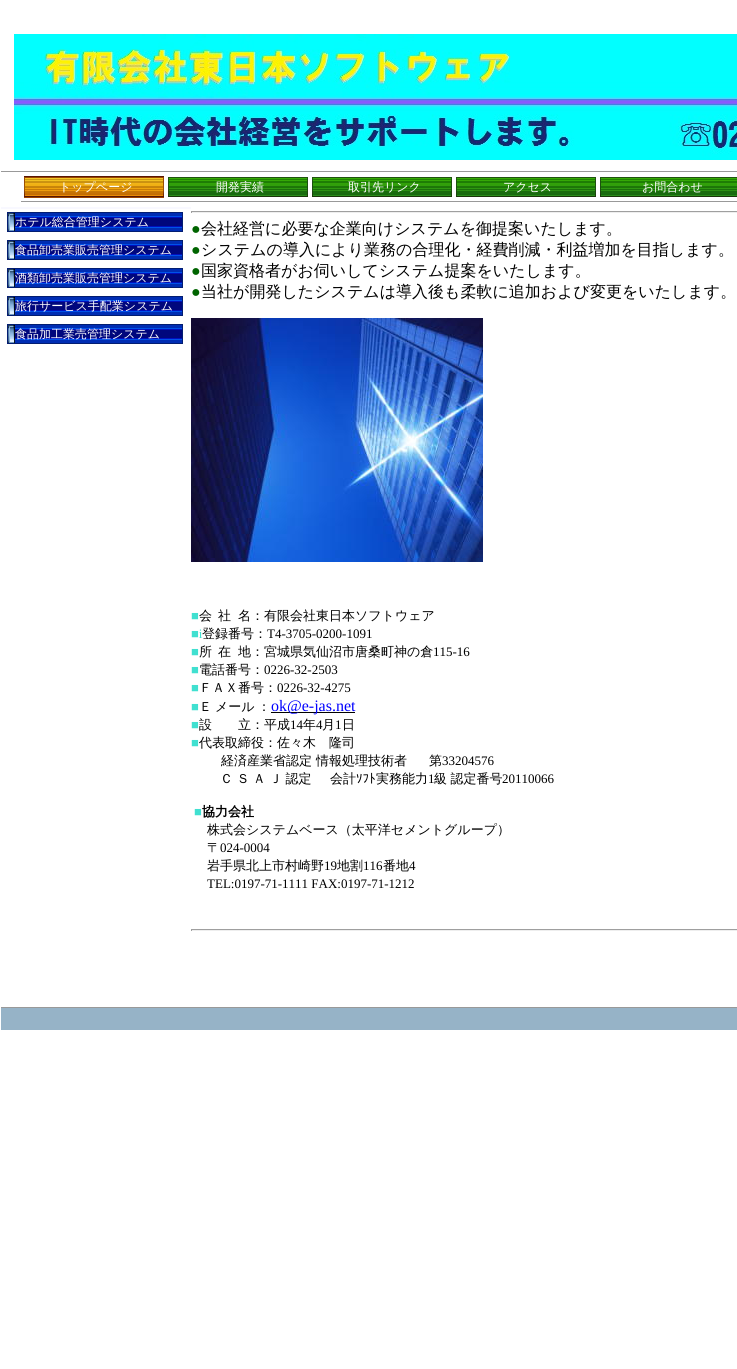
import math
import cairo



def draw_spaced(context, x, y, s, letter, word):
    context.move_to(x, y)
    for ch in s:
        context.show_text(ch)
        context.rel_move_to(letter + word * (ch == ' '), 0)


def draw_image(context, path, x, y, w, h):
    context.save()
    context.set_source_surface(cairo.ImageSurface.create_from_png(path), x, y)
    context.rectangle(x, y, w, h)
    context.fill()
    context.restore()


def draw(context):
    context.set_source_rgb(1, 1, 1)
    context.paint()
    draw_image(context, "images/1.png", 14, 34, 723, 126)
    context.set_source_rgb(153 / 255, 153 / 255, 153 / 255)
    context.rectangle(1, 171, 736, 1)
    context.fill()
    context.rectangle(21, 201, 716, 1)
    context.fill()
    draw_image(context, "images/2.png", 24, 176, 8, 22)
    draw_image(context, "images/3.png", 156, 176, 8, 22)
    draw_image(context, "images/4.png", 32, 176, 124, 22)
    draw_image(context, "images/5.png", 168, 177, 8, 20)
    draw_image(context, "images/6.png", 300, 177, 8, 20)
    draw_image(context, "images/7.png", 176, 177, 124, 20)
    draw_image(context, "images/5.png", 312, 177, 8, 20)
    draw_image(context, "images/6.png", 444, 177, 8, 20)
    draw_image(context, "images/7.png", 320, 177, 124, 20)
    draw_image(context, "images/5.png", 456, 177, 8, 20)
    draw_image(context, "images/6.png", 588, 177, 8, 20)
    draw_image(context, "images/7.png", 464, 177, 124, 20)
    draw_image(context, "images/5.png", 600, 177, 8, 20)
    draw_image(context, "images/8.png", 732, 177, 5, 20)
    draw_image(context, "images/7.png", 608, 177, 124, 20)
    context.set_source_rgb(248 / 255, 248 / 255, 1)
    context.rectangle(1, 207, 190, 2)
    context.fill()
    draw_image(context, "images/9.png", 7, 212, 8, 20)
    draw_image(context, "images/10.png", 175, 212, 8, 20)
    draw_image(context, "images/11.png", 15, 212, 160, 20)
    draw_image(context, "images/9.png", 7, 240, 8, 20)
    draw_image(context, "images/10.png", 175, 240, 8, 20)
    draw_image(context, "images/11.png", 15, 240, 160, 20)
    draw_image(context, "images/9.png", 7, 268, 8, 20)
    draw_image(context, "images/10.png", 175, 268, 8, 20)
    draw_image(context, "images/11.png", 15, 268, 160, 20)
    draw_image(context, "images/9.png", 7, 296, 8, 20)
    draw_image(context, "images/10.png", 175, 296, 8, 20)
    draw_image(context, "images/11.png", 15, 296, 160, 20)
    draw_image(context, "images/9.png", 7, 324, 8, 20)
    draw_image(context, "images/10.png", 175, 324, 8, 20)
    draw_image(context, "images/11.png", 15, 324, 160, 20)
    context.set_source_rgb(159 / 255, 159 / 255, 159 / 255)
    context.rectangle(191, 211, 546, 1)
    context.fill()
    context.set_source_rgb(238 / 255, 238 / 255, 238 / 255)
    context.rectangle(191, 212, 546, 1)
    context.fill()
    context.set_source_rgb(159 / 255, 159 / 255, 159 / 255)
    context.rectangle(191, 211, 1, 2)
    context.fill()
    draw_image(context, "images/12.png", 191, 318, 292, 244)
    context.set_source_rgb(0, 0, 0)
    context.rectangle(271, 712, 84, 1)
    context.fill()
    context.set_source_rgb(159 / 255, 159 / 255, 159 / 255)
    context.rectangle(191, 929, 546, 1)
    context.fill()
    context.set_source_rgb(238 / 255, 238 / 255, 238 / 255)
    context.rectangle(191, 930, 546, 1)
    context.fill()
    context.set_source_rgb(159 / 255, 159 / 255, 159 / 255)
    context.rectangle(191, 929, 1, 2)
    context.fill()
    context.set_source_rgb(150 / 255, 179 / 255, 199 / 255)
    context.rectangle(1, 1008, 736, 22)
    context.fill()
    context.set_source_rgb(153 / 255, 153 / 255, 153 / 255)
    context.rectangle(1, 1007, 736, 1)
    context.fill()
    context.select_font_face("WenQuanYi Zen Hei Medium")
    context.set_font_size(12)
    context.set_source_rgb(1, 1, 1)
    context.move_to(59, 191)
    context.show_text("トップページ")
    context.move_to(216, 191)
    context.show_text("開発実績")
    context.move_to(348, 191)
    context.show_text("取引先リンク")
    context.move_to(503, 191)
    context.show_text("アクセス")
    context.move_to(642, 191)
    context.show_text("お問合わせ")
    context.move_to(15, 226)
    context.show_text("ホテル総合管理システム")
    context.move_to(15, 254)
    context.show_text("食品卸売業販売管理システム")
    context.move_to(15, 282)
    context.show_text("酒類卸売業販売管理システム")
    context.move_to(15, 310)
    context.show_text("旅行サービス手配業システム")
    context.move_to(15, 338)
    context.show_text("食品加工業売管理システム")
    context.select_font_face("Liberation Serif")
    context.set_font_size(16)
    context.set_source_rgb(0, 100 / 255, 0)
    context.move_to(191, 234)
    context.show_text("●")
    context.select_font_face("WenQuanYi Zen Hei Medium")
    context.set_source_rgb(0, 0, 0)
    context.move_to(201, 234)
    context.show_text("会社経営に必要な企業向けシステムを御提案いたします。")
    context.select_font_face("Liberation Serif")
    context.set_source_rgb(0, 100 / 255, 0)
    context.move_to(191, 255)
    context.show_text("●")
    context.select_font_face("WenQuanYi Zen Hei Medium")
    context.set_source_rgb(0, 0, 0)
    context.move_to(201, 255)
    context.show_text("システムの導入により業務の合理化・経費削減・利益増加を目指します。")
    context.select_font_face("Liberation Serif")
    context.set_source_rgb(0, 100 / 255, 0)
    context.move_to(191, 276)
    context.show_text("●")
    context.select_font_face("WenQuanYi Zen Hei Medium")
    context.set_source_rgb(0, 0, 0)
    context.move_to(201, 276)
    context.show_text("国家資格者がお伺いしてシステム提案をいたします。")
    context.select_font_face("Liberation Serif")
    context.set_source_rgb(0, 100 / 255, 0)
    context.move_to(191, 297)
    context.show_text("●")
    context.select_font_face("WenQuanYi Zen Hei Medium")
    context.set_source_rgb(0, 0, 0)
    context.move_to(201, 297)
    context.show_text("当社が開発したシステムは導入後も柔軟に追加および変更をいたします。")
    context.select_font_face("Liberation Serif")
    context.set_font_size(13)
    context.set_source_rgb(64 / 255, 224 / 255, 208 / 255)
    context.move_to(191, 620)
    context.show_text("■")
    context.select_font_face("WenQuanYi Zen Hei Medium")
    context.set_source_rgb(0, 0, 0)
    context.move_to(199, 620)
    context.show_text("会")
    context.move_to(218, 620)
    context.show_text("社")
    context.move_to(238, 620)
    context.show_text("名：有限会社東日本ソフトウェア")
    context.select_font_face("Liberation Serif")
    context.set_source_rgb(64 / 255, 224 / 255, 208 / 255)
    context.move_to(191, 638)
    context.show_text("■i")
    context.select_font_face("WenQuanYi Zen Hei Medium")
    context.set_source_rgb(0, 0, 0)
    context.move_to(202, 638)
    context.show_text("登録番号：")
    context.select_font_face("Liberation Serif")
    context.move_to(267, 638)
    context.show_text("T4-3705-0200-1091")
    context.set_source_rgb(64 / 255, 224 / 255, 208 / 255)
    context.move_to(191, 656)
    context.show_text("■")
    context.select_font_face("WenQuanYi Zen Hei Medium")
    context.set_source_rgb(0, 0, 0)
    context.move_to(199, 656)
    context.show_text("所")
    context.move_to(218, 656)
    context.show_text("在")
    context.move_to(238, 656)
    context.show_text("地：宮城県気仙沼市唐桑町神の倉")
    context.select_font_face("Liberation Serif")
    context.move_to(433, 656)
    context.show_text("115-16")
    context.set_source_rgb(64 / 255, 224 / 255, 208 / 255)
    context.move_to(191, 674)
    context.show_text("■")
    context.select_font_face("WenQuanYi Zen Hei Medium")
    context.set_source_rgb(0, 0, 0)
    context.move_to(199, 674)
    context.show_text("電話番号：")
    context.select_font_face("Liberation Serif")
    context.move_to(264, 674)
    context.show_text("0226-32-2503")
    context.set_source_rgb(64 / 255, 224 / 255, 208 / 255)
    context.move_to(191, 692)
    context.show_text("■")
    context.select_font_face("WenQuanYi Zen Hei Medium")
    context.set_source_rgb(0, 0, 0)
    context.move_to(199, 692)
    context.show_text("ＦＡＸ番号：")
    context.select_font_face("Liberation Serif")
    context.move_to(277, 692)
    context.show_text("0226-32-4275")
    context.set_source_rgb(64 / 255, 224 / 255, 208 / 255)
    context.move_to(191, 711)
    context.show_text("■")
    context.select_font_face("WenQuanYi Zen Hei Medium")
    context.set_source_rgb(0, 0, 0)
    draw_spaced(context, 199, 711, "Ｅ メール ：", 0, -1)
    context.select_font_face("Liberation Serif")
    context.set_font_size(16)
    context.set_source_rgb(0, 0, 1)
    context.move_to(271, 711)
    context.show_text("ok@e-jas.net")
    context.set_font_size(13)
    context.set_source_rgb(64 / 255, 224 / 255, 208 / 255)
    context.move_to(191, 729)
    context.show_text("■")
    context.select_font_face("WenQuanYi Zen Hei Medium")
    context.set_source_rgb(0, 0, 0)
    context.move_to(199, 729)
    context.show_text("設")
    context.move_to(238, 729)
    context.show_text("立：平成")
    context.select_font_face("Liberation Serif")
    context.move_to(290, 729)
    context.show_text("14")
    context.select_font_face("WenQuanYi Zen Hei Medium")
    context.move_to(303, 729)
    context.show_text("年")
    context.select_font_face("Liberation Serif")
    context.move_to(316, 729)
    context.show_text("4")
    context.select_font_face("WenQuanYi Zen Hei Medium")
    context.move_to(322, 729)
    context.show_text("月")
    context.select_font_face("Liberation Serif")
    context.move_to(335, 729)
    context.show_text("1")
    context.select_font_face("WenQuanYi Zen Hei Medium")
    context.move_to(342, 729)
    context.show_text("日")
    context.select_font_face("Liberation Serif")
    context.set_source_rgb(64 / 255, 224 / 255, 208 / 255)
    context.move_to(191, 747)
    context.show_text("■")
    context.select_font_face("WenQuanYi Zen Hei Medium")
    context.set_source_rgb(0, 0, 0)
    context.move_to(199, 747)
    context.show_text("代表取締役：佐々木　隆司")
    context.move_to(221, 765)
    context.show_text("経済産業省認定 情報処理技術者")
    context.move_to(429, 765)
    context.show_text("第")
    context.select_font_face("Liberation Serif")
    context.move_to(442, 765)
    context.show_text("33204576")
    context.select_font_face("WenQuanYi Zen Hei Medium")
    draw_spaced(context, 220, 783, "Ｃ Ｓ Ａ Ｊ 認定", 0, -0.5)
    context.move_to(330, 783)
    context.show_text("会計")
    context.select_font_face("IPAPGothic")
    context.move_to(356, 783)
    context.show_text("ｿﾌﾄ")
    context.select_font_face("WenQuanYi Zen Hei Medium")
    context.move_to(376, 783)
    context.show_text("実務能力")
    context.select_font_face("Liberation Serif")
    context.move_to(428, 783)
    context.show_text("1")
    context.select_font_face("WenQuanYi Zen Hei Medium")
    draw_spaced(context, 434, 783, "級 認定番号", 0, -0.5)
    context.select_font_face("Liberation Serif")
    context.move_to(502, 783)
    context.show_text("20110066")
    context.set_source_rgb(64 / 255, 224 / 255, 208 / 255)
    context.move_to(194, 816)
    context.show_text("■")
    context.select_font_face("WenQuanYi Zen Hei", cairo.FontSlant.NORMAL, cairo.FontWeight.BOLD)
    context.set_source_rgb(0, 0, 0)
    context.move_to(202, 816)
    context.show_text("協力会社")
    context.select_font_face("WenQuanYi Zen Hei Medium")
    context.move_to(207, 834)
    context.show_text("株式会システムベース（太平洋セメントグループ）")
    context.move_to(207, 852)
    context.show_text("〒")
    context.select_font_face("Liberation Serif")
    context.move_to(220, 852)
    context.show_text("024-0004")
    context.select_font_face("WenQuanYi Zen Hei Medium")
    context.move_to(207, 870)
    context.show_text("岩手県北上市村崎野")
    context.select_font_face("Liberation Serif")
    context.move_to(324, 870)
    context.show_text("19")
    context.select_font_face("WenQuanYi Zen Hei Medium")
    context.move_to(337, 870)
    context.show_text("地割")
    context.select_font_face("Liberation Serif")
    context.move_to(363, 870)
    context.show_text("116")
    context.select_font_face("WenQuanYi Zen Hei Medium")
    context.move_to(383, 870)
    context.show_text("番地")
    context.select_font_face("Liberation Serif")
    context.move_to(409, 870)
    context.show_text("4")
    context.move_to(207, 888)
    context.show_text("TEL:0197-71-1111 FAX:0197-71-1212")


surface = cairo.ImageSurface(cairo.Format.RGB24, 737, 1369)
context = cairo.Context(surface)
options = cairo.FontOptions()
options.set_hint_metrics(cairo.HintMetrics.OFF)
options.set_hint_style(cairo.HintStyle.NONE)
context.set_font_options(options)
context.set_miter_limit(4)
draw(context)
surface.write_to_png("out.png")
